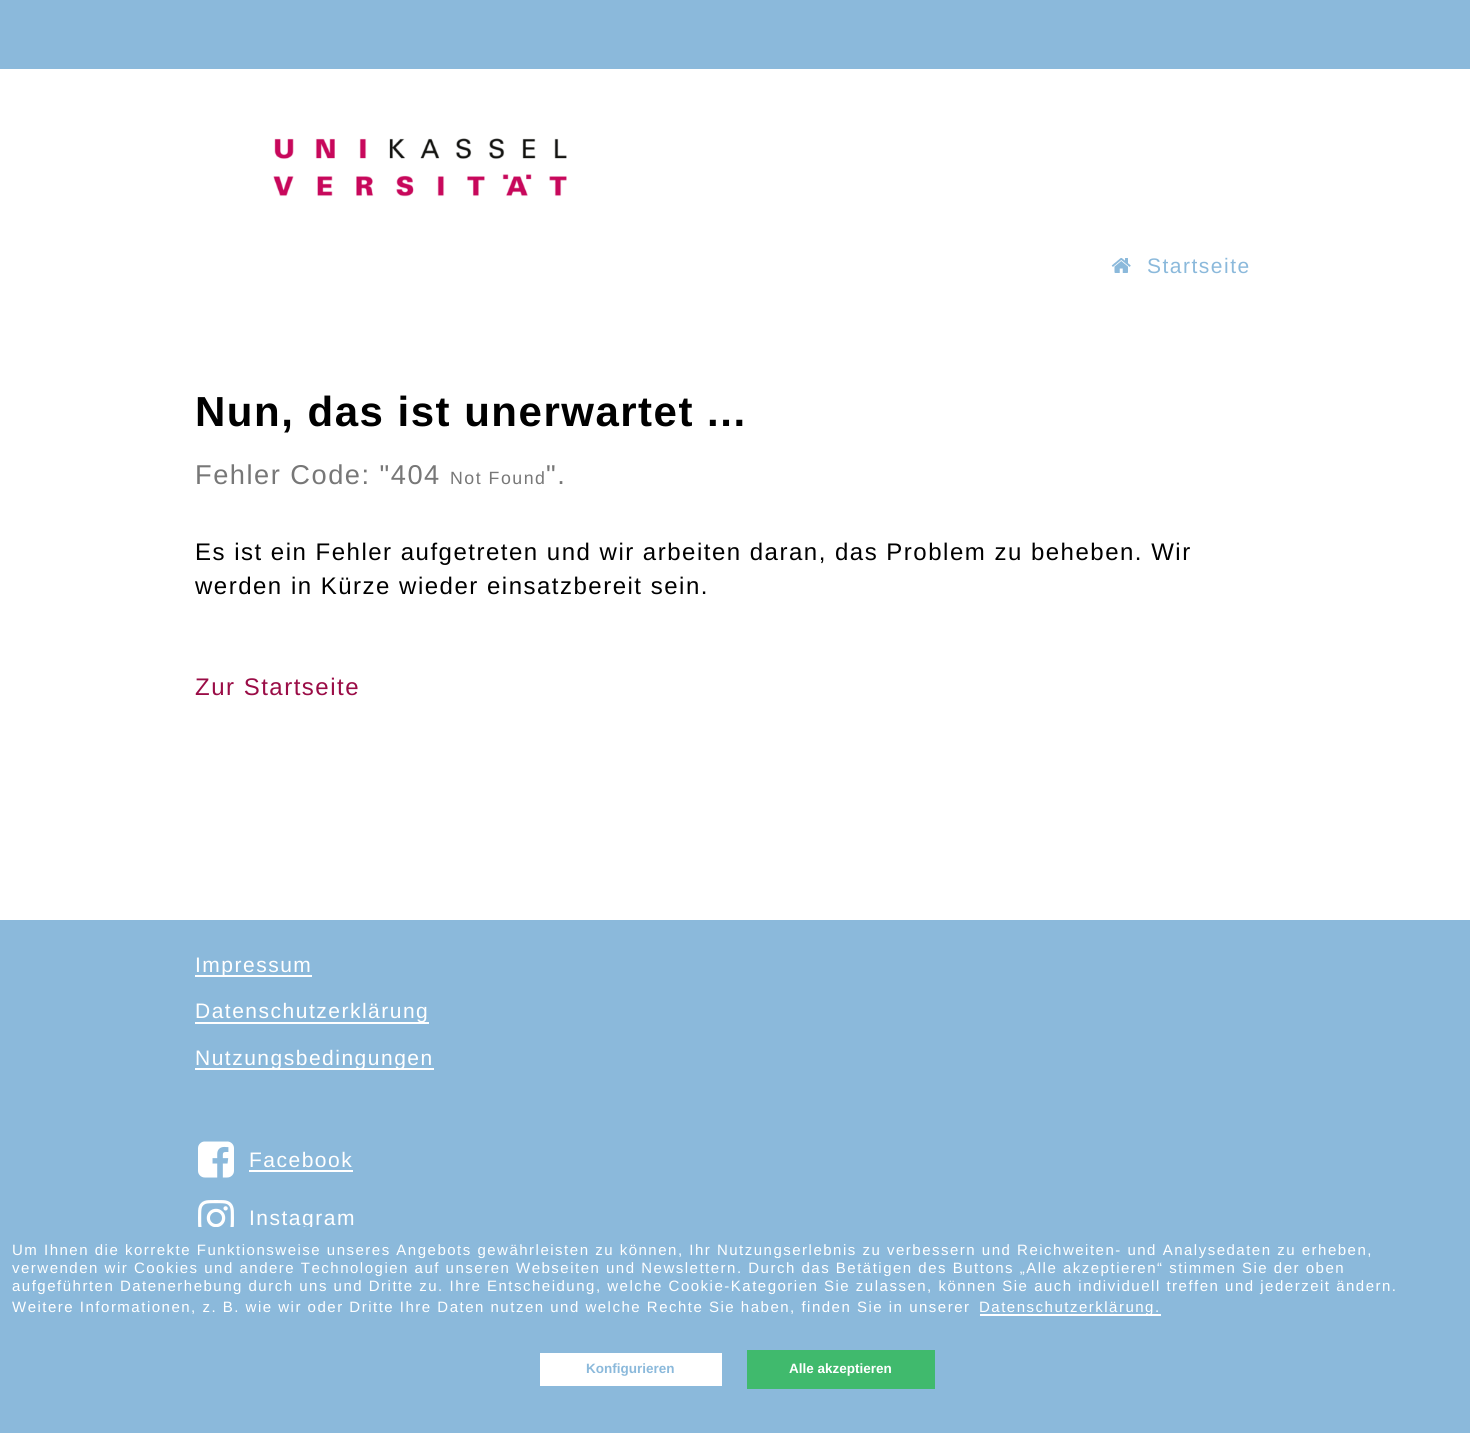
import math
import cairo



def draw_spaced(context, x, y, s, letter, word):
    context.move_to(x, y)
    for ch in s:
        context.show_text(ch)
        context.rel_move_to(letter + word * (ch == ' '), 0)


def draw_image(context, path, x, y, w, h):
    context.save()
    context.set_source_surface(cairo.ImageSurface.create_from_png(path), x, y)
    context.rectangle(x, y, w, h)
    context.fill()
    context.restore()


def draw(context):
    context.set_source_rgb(1, 1, 1)
    context.paint()
    context.set_source_rgb(139 / 255, 185 / 255, 219 / 255)
    context.rectangle(0, 0, 1470, 69)
    context.fill()
    draw_image(context, "images/1.png", 273, 138, 294, 59)
    draw_image(context, "images/2.png", 1111, 258, 20, 15)
    context.rectangle(0, 920, 1470, 307)
    context.fill()
    context.set_source_rgb(1, 1, 1)
    context.rectangle(195, 975, 117, 2)
    context.fill()
    context.rectangle(195, 1022, 234, 2)
    context.fill()
    context.rectangle(195, 1068, 239, 2)
    context.fill()
    draw_image(context, "images/3.png", 198, 1141, 36, 37)
    context.rectangle(249, 1170, 104, 2)
    context.fill()
    draw_image(context, "images/4.png", 198, 1200, 36, 27)
    context.select_font_face("Liberation Sans")
    context.set_font_size(21)
    context.set_source_rgb(139 / 255, 185 / 255, 219 / 255)
    draw_spaced(context, 1147, 273, "Startseite", 1.5, 0)
    context.select_font_face("Liberation Sans", cairo.FontSlant.NORMAL, cairo.FontWeight.BOLD)
    context.set_font_size(42)
    context.set_source_rgb(0, 0, 0)
    draw_spaced(context, 195, 426, "Nun, das ist unerwartet ...", 1.5, 0)
    context.select_font_face("Liberation Sans")
    context.set_font_size(27.25)
    context.set_source_rgb(119 / 255, 119 / 255, 119 / 255)
    draw_spaced(context, 195, 484, "Fehler Code: \"404", 1.5, 0)
    context.set_font_size(17.75)
    draw_spaced(context, 450, 484, "Not Found", 1.5, 0)
    context.set_font_size(27.25)
    draw_spaced(context, 546, 484, "\".", 1.5, 0)
    context.set_font_size(24)
    context.set_source_rgb(0, 0, 0)
    draw_spaced(context, 195, 560, "Es ist ein Fehler aufgetreten und wir arbeiten daran, das Problem zu beheben. Wir", 1.5, 0)
    draw_spaced(context, 195, 594, "werden in Kürze wieder einsatzbereit sein.", 1.5, 0)
    context.set_source_rgb(154 / 255, 12 / 255, 70 / 255)
    draw_spaced(context, 195, 695, "Zur Startseite", 1.5, 0)
    context.set_font_size(21)
    context.set_source_rgb(1, 1, 1)
    draw_spaced(context, 195, 972, "Impressum", 1.5, 0)
    draw_spaced(context, 195, 1018, "Datenschutzerklärung", 1.5, 0)
    draw_spaced(context, 195, 1065, "Nutzungsbedingungen", 1.5, 0)
    draw_spaced(context, 249, 1167, "Facebook", 1.5, 0)
    draw_spaced(context, 249, 1225, "Instagram", 1.5, 0)
    context.set_source_rgb(139 / 255, 185 / 255, 219 / 255)
    context.rectangle(0, 1227, 1470, 206)
    context.fill()
    context.set_font_size(15)
    context.set_source_rgb(1, 1, 1)
    draw_spaced(context, 12, 1255, "Um Ihnen die korrekte Funktionsweise unseres Angebots gewährleisten zu können, Ihr Nutzungserlebnis zu verbessern und Reichweiten- und Analysedaten zu erheben,", 1.5, 0)
    draw_spaced(context, 12, 1273, "verwenden wir Cookies und andere Technologien auf unseren Webseiten und Newslettern. Durch das Betätigen des Buttons „Alle akzeptieren“ stimmen Sie der oben", 1.5, 0)
    draw_spaced(context, 12, 1291, "aufgeführten Datenerhebung durch uns und Dritte zu. Ihre Entscheidung, welche Cookie-Kategorien Sie zulassen, können Sie auch individuell treffen und jederzeit ändern.", 1.5, 0)
    draw_spaced(context, 12, 1312, "Weitere Informationen, z. B. wie wir oder Dritte Ihre Daten nutzen und welche Rechte Sie haben, finden Sie in unserer", 1.5, 0)
    context.rectangle(980, 1314, 181, 2)
    context.fill()
    draw_spaced(context, 979, 1312, "Datenschutzerklärung.", 1.5, 0)
    context.rectangle(540, 1353, 182, 33)
    context.fill()
    context.select_font_face("Liberation Sans", cairo.FontSlant.NORMAL, cairo.FontWeight.BOLD)
    context.set_font_size(13.5)
    context.set_source_rgb(139 / 255, 185 / 255, 219 / 255)
    context.move_to(586, 1373)
    context.show_text("Konfigurieren")
    context.set_source_rgb(64 / 255, 186 / 255, 109 / 255)
    context.rectangle(747, 1350, 188, 39)
    context.fill()
    context.set_source_rgb(1, 1, 1)
    context.move_to(789, 1373)
    context.show_text("Alle akzeptieren")


surface = cairo.ImageSurface(cairo.Format.RGB24, 1470, 1433)
context = cairo.Context(surface)
options = cairo.FontOptions()
options.set_hint_metrics(cairo.HintMetrics.OFF)
options.set_hint_style(cairo.HintStyle.NONE)
context.set_font_options(options)
context.set_miter_limit(4)
draw(context)
surface.write_to_png("out.png")
